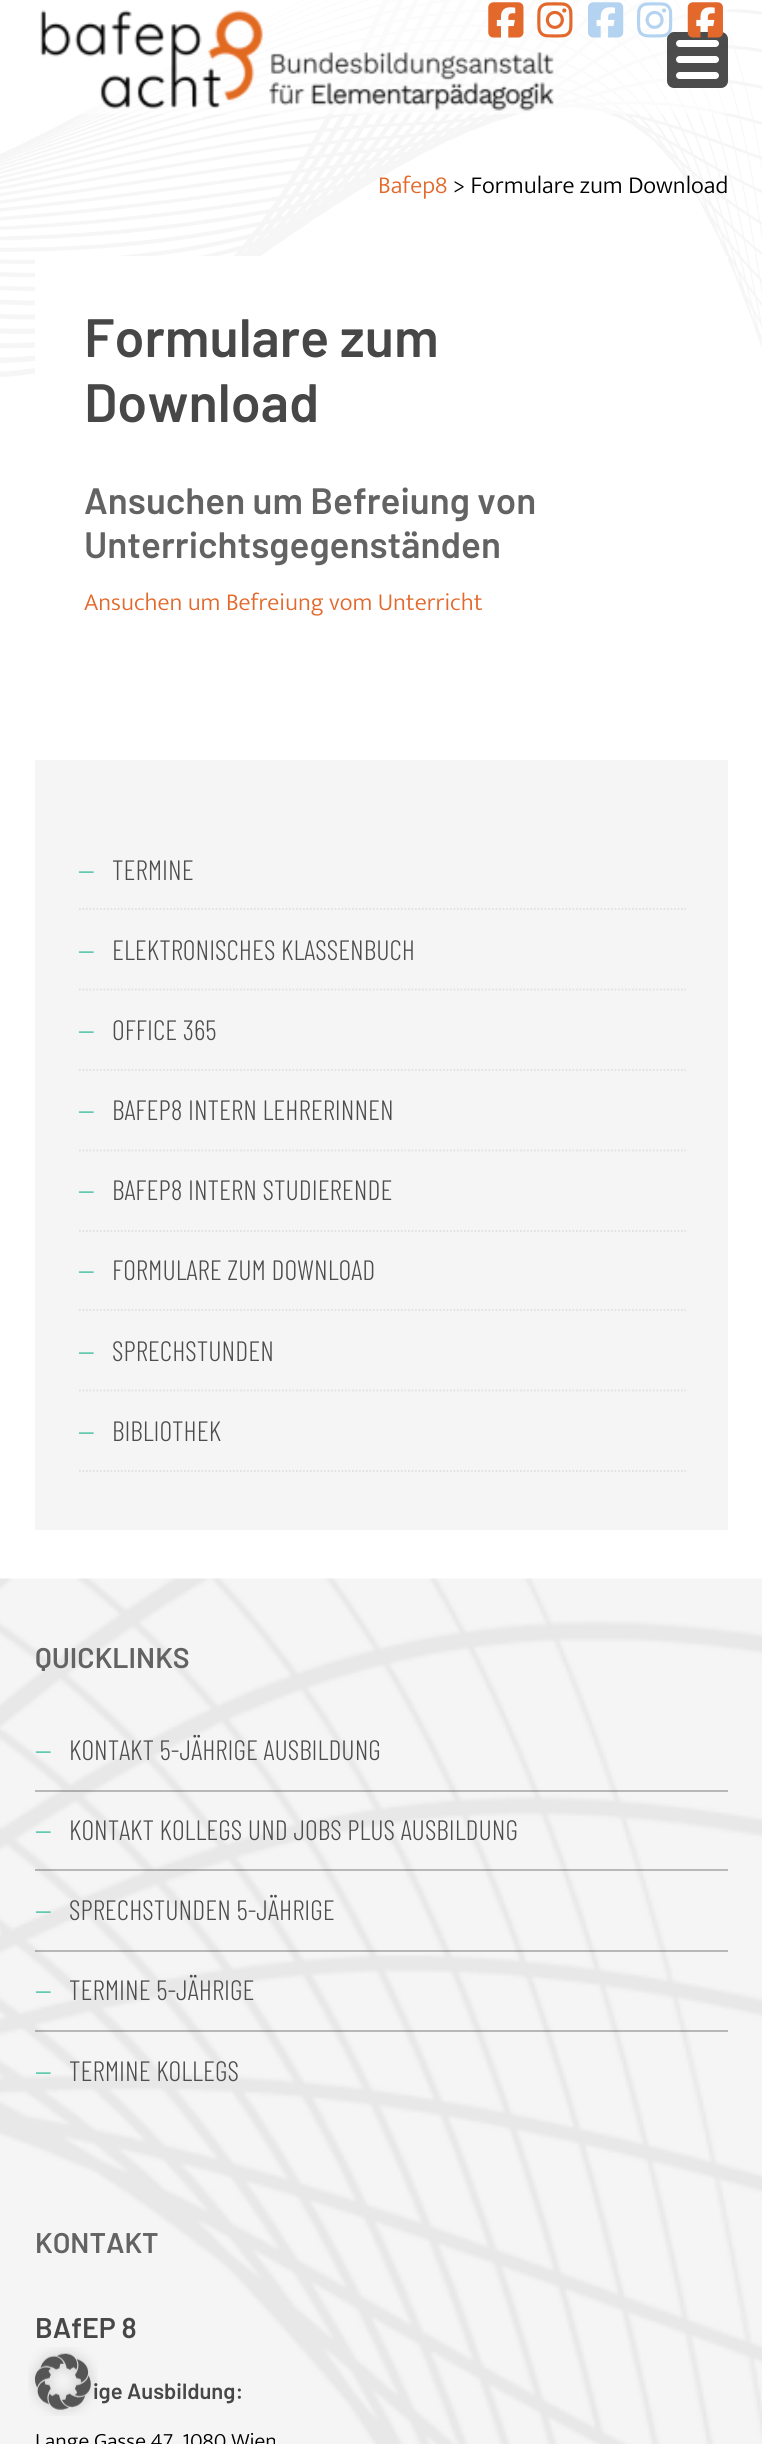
import math
import cairo



def rounded_rect(context, x, y, w, h, r):
    context.new_sub_path()
    for i, (u, v) in enumerate([(x + w - r, y + h - r), (x + r, y + h - r), (x + r, y + r), (x + w - r, y + r)]):
        context.arc(u, v, r, i * math.pi / 2, (i + 1) * math.pi / 2)
    context.close_path()


def draw_image(context, path, x, y, w, h):
    context.save()
    context.set_source_surface(cairo.ImageSurface.create_from_png(path), x, y)
    context.rectangle(x, y, w, h)
    context.fill()
    context.restore()


def draw(context):
    context.set_source_rgb(1, 1, 1)
    context.paint()
    draw_image(context, "images/1.png", 0, 0, 762, 377)
    context.set_source_rgba(1, 1, 1, 0.55)
    context.rectangle(82, 0, 646, 114)
    context.fill()
    draw_image(context, "images/2.png", 40, 10, 514, 101)
    context.set_source_rgba(0, 0, 0, 0.7)
    rounded_rect(context, 667, 32, 61, 56, 7)
    context.fill()
    context.set_source_rgb(1, 1, 1)
    rounded_rect(context, 676, 40, 43, 7, 3.5)
    context.fill()
    rounded_rect(context, 676, 56, 43, 7, 3.5)
    context.fill()
    rounded_rect(context, 676, 72, 43, 7, 3.5)
    context.fill()
    draw_image(context, "images/3.png", 488, 2, 36, 36)
    draw_image(context, "images/4.png", 537, 2, 36, 36)
    draw_image(context, "images/5.png", 588, 2, 36, 36)
    draw_image(context, "images/6.png", 637, 2, 36, 36)
    draw_image(context, "images/7.png", 687, 2, 36, 36)
    context.rectangle(35, 256, 693, 118)
    context.fill()
    context.set_source_rgb(245 / 255, 245 / 255, 245 / 255)
    context.rectangle(35, 760, 693, 770)
    context.fill()
    context.new_path()
    context.move_to(79, 909)
    context.line_to(686, 909)
    context.set_source_rgb(225 / 255, 225 / 255, 225 / 255)
    context.set_line_width(1.8)
    context.set_dash([1.75, 1.75])
    context.stroke()
    context.new_path()
    context.move_to(79, 989.5)
    context.line_to(686, 989.5)
    context.stroke()
    context.new_path()
    context.move_to(79, 1070)
    context.line_to(686, 1070)
    context.stroke()
    context.new_path()
    context.move_to(79, 1150.5)
    context.line_to(686, 1150.5)
    context.stroke()
    context.new_path()
    context.move_to(79, 1231)
    context.line_to(686, 1231)
    context.stroke()
    context.new_path()
    context.move_to(79, 1310)
    context.line_to(686, 1310)
    context.stroke()
    context.new_path()
    context.move_to(79, 1390.5)
    context.line_to(686, 1390.5)
    context.stroke()
    context.new_path()
    context.move_to(79, 1471)
    context.line_to(686, 1471)
    context.stroke()
    draw_image(context, "images/8.png", 0, 1578, 762, 866)
    context.set_source_rgba(0, 0, 0, 0.25)
    context.rectangle(35, 1790, 693, 2)
    context.fill()
    context.rectangle(35, 1869, 693, 2)
    context.fill()
    context.rectangle(35, 1950, 693, 2)
    context.fill()
    context.rectangle(35, 2030, 693, 2)
    context.fill()
    context.select_font_face("Mukta Light")
    context.set_font_size(24.5)
    context.set_source_rgb(226 / 255, 104 / 255, 43 / 255)
    context.move_to(378, 193)
    context.show_text("Bafep8")
    context.set_source_rgb(0, 0, 0)
    context.move_to(453, 193)
    context.show_text("> Formulare zum Download")
    context.select_font_face("Barlow SemiBold")
    context.set_font_size(54)
    context.set_source_rgb(71 / 255, 71 / 255, 71 / 255)
    context.move_to(84, 357)
    context.show_text("Formulare zum")
    context.move_to(84, 422)
    context.show_text("Download")
    context.set_font_size(36.75)
    context.set_source_rgb(99 / 255, 99 / 255, 99 / 255)
    context.move_to(84, 514)
    context.show_text("Ansuchen um Befreiung von")
    context.move_to(84, 558)
    context.show_text("Unterrichtsgegenständen")
    context.select_font_face("Mukta Light")
    context.set_font_size(24.5)
    context.set_source_rgb(226 / 255, 104 / 255, 43 / 255)
    context.move_to(84, 610)
    context.show_text("Ansuchen um Befreiung vom Unterricht")
    context.select_font_face("Barlow Condensed Light")
    context.set_font_size(28)
    context.set_source_rgb(51 / 255, 187 / 255, 152 / 255)
    context.move_to(78, 880)
    context.show_text("—")
    context.set_source_rgb(77 / 255, 77 / 255, 77 / 255)
    context.move_to(112, 880)
    context.show_text("TERMINE")
    context.set_source_rgb(51 / 255, 187 / 255, 152 / 255)
    context.move_to(78, 960)
    context.show_text("—")
    context.set_source_rgb(77 / 255, 77 / 255, 77 / 255)
    context.move_to(112, 960)
    context.show_text("ELEKTRONISCHES KLASSENBUCH")
    context.set_source_rgb(51 / 255, 187 / 255, 152 / 255)
    context.move_to(78, 1040)
    context.show_text("—")
    context.set_source_rgb(77 / 255, 77 / 255, 77 / 255)
    context.move_to(112, 1040)
    context.show_text("OFFICE 365")
    context.set_source_rgb(51 / 255, 187 / 255, 152 / 255)
    context.move_to(78, 1120)
    context.show_text("—")
    context.set_source_rgb(77 / 255, 77 / 255, 77 / 255)
    context.move_to(112, 1120)
    context.show_text("BAFEP8 INTERN LEHRERINNEN")
    context.set_source_rgb(51 / 255, 187 / 255, 152 / 255)
    context.move_to(78, 1200)
    context.show_text("—")
    context.set_source_rgb(77 / 255, 77 / 255, 77 / 255)
    context.move_to(112, 1200)
    context.show_text("BAFEP8 INTERN STUDIERENDE")
    context.set_source_rgb(51 / 255, 187 / 255, 152 / 255)
    context.move_to(78, 1280)
    context.show_text("—")
    context.set_source_rgb(77 / 255, 77 / 255, 77 / 255)
    context.move_to(112, 1280)
    context.show_text("FORMULARE ZUM DOWNLOAD")
    context.set_source_rgb(51 / 255, 187 / 255, 152 / 255)
    context.move_to(78, 1361)
    context.show_text("—")
    context.set_source_rgb(77 / 255, 77 / 255, 77 / 255)
    context.move_to(112, 1361)
    context.show_text("SPRECHSTUNDEN")
    context.set_source_rgb(51 / 255, 187 / 255, 152 / 255)
    context.move_to(78, 1441)
    context.show_text("—")
    context.set_source_rgb(77 / 255, 77 / 255, 77 / 255)
    context.move_to(112, 1441)
    context.show_text("BIBLIOTHEK")
    context.select_font_face("Barlow SemiBold")
    context.set_font_size(28.5)
    context.set_source_rgb(99 / 255, 99 / 255, 99 / 255)
    context.move_to(35, 1668)
    context.show_text("QUICKLINKS")
    context.select_font_face("Barlow Condensed Light")
    context.set_font_size(28)
    context.set_source_rgb(51 / 255, 187 / 255, 152 / 255)
    context.move_to(35, 1760)
    context.show_text("—")
    context.set_source_rgb(77 / 255, 77 / 255, 77 / 255)
    context.move_to(69, 1760)
    context.show_text("KONTAKT 5-JÄHRIGE AUSBILDUNG")
    context.set_source_rgb(51 / 255, 187 / 255, 152 / 255)
    context.move_to(35, 1840)
    context.show_text("—")
    context.set_source_rgb(77 / 255, 77 / 255, 77 / 255)
    context.move_to(69, 1840)
    context.show_text("KONTAKT KOLLEGS UND JOBS PLUS AUSBILDUNG")
    context.set_source_rgb(51 / 255, 187 / 255, 152 / 255)
    context.move_to(35, 1920)
    context.show_text("—")
    context.set_source_rgb(77 / 255, 77 / 255, 77 / 255)
    context.move_to(69, 1920)
    context.show_text("SPRECHSTUNDEN 5-JÄHRIGE")
    context.set_source_rgb(51 / 255, 187 / 255, 152 / 255)
    context.move_to(35, 2000)
    context.show_text("—")
    context.set_source_rgb(77 / 255, 77 / 255, 77 / 255)
    context.move_to(69, 2000)
    context.show_text("TERMINE 5-JÄHRIGE")
    context.set_source_rgb(51 / 255, 187 / 255, 152 / 255)
    context.move_to(35, 2081)
    context.show_text("—")
    context.set_source_rgb(77 / 255, 77 / 255, 77 / 255)
    context.move_to(69, 2081)
    context.show_text("TERMINE KOLLEGS")
    context.select_font_face("Barlow SemiBold")
    context.set_font_size(28.5)
    context.set_source_rgb(99 / 255, 99 / 255, 99 / 255)
    context.move_to(35, 2253)
    context.show_text("KONTAKT")
    context.set_source_rgb(71 / 255, 71 / 255, 71 / 255)
    context.move_to(35, 2338)
    context.show_text("BAfEP 8")
    context.set_font_size(22)
    context.move_to(93, 2399)
    context.show_text("ige Ausbildung:")
    context.select_font_face("Mukta Light")
    context.set_source_rgb(0, 0, 0)
    context.move_to(35, 2448)
    context.show_text("Lange Gasse 47, 1080 Wien")
    draw_image(context, "images/9.png", 28, 2347, 70, 69)


surface = cairo.ImageSurface(cairo.Format.RGB24, 762, 2444)
context = cairo.Context(surface)
options = cairo.FontOptions()
options.set_hint_metrics(cairo.HintMetrics.OFF)
options.set_hint_style(cairo.HintStyle.NONE)
context.set_font_options(options)
context.set_miter_limit(4)
draw(context)
surface.write_to_png("out.png")
